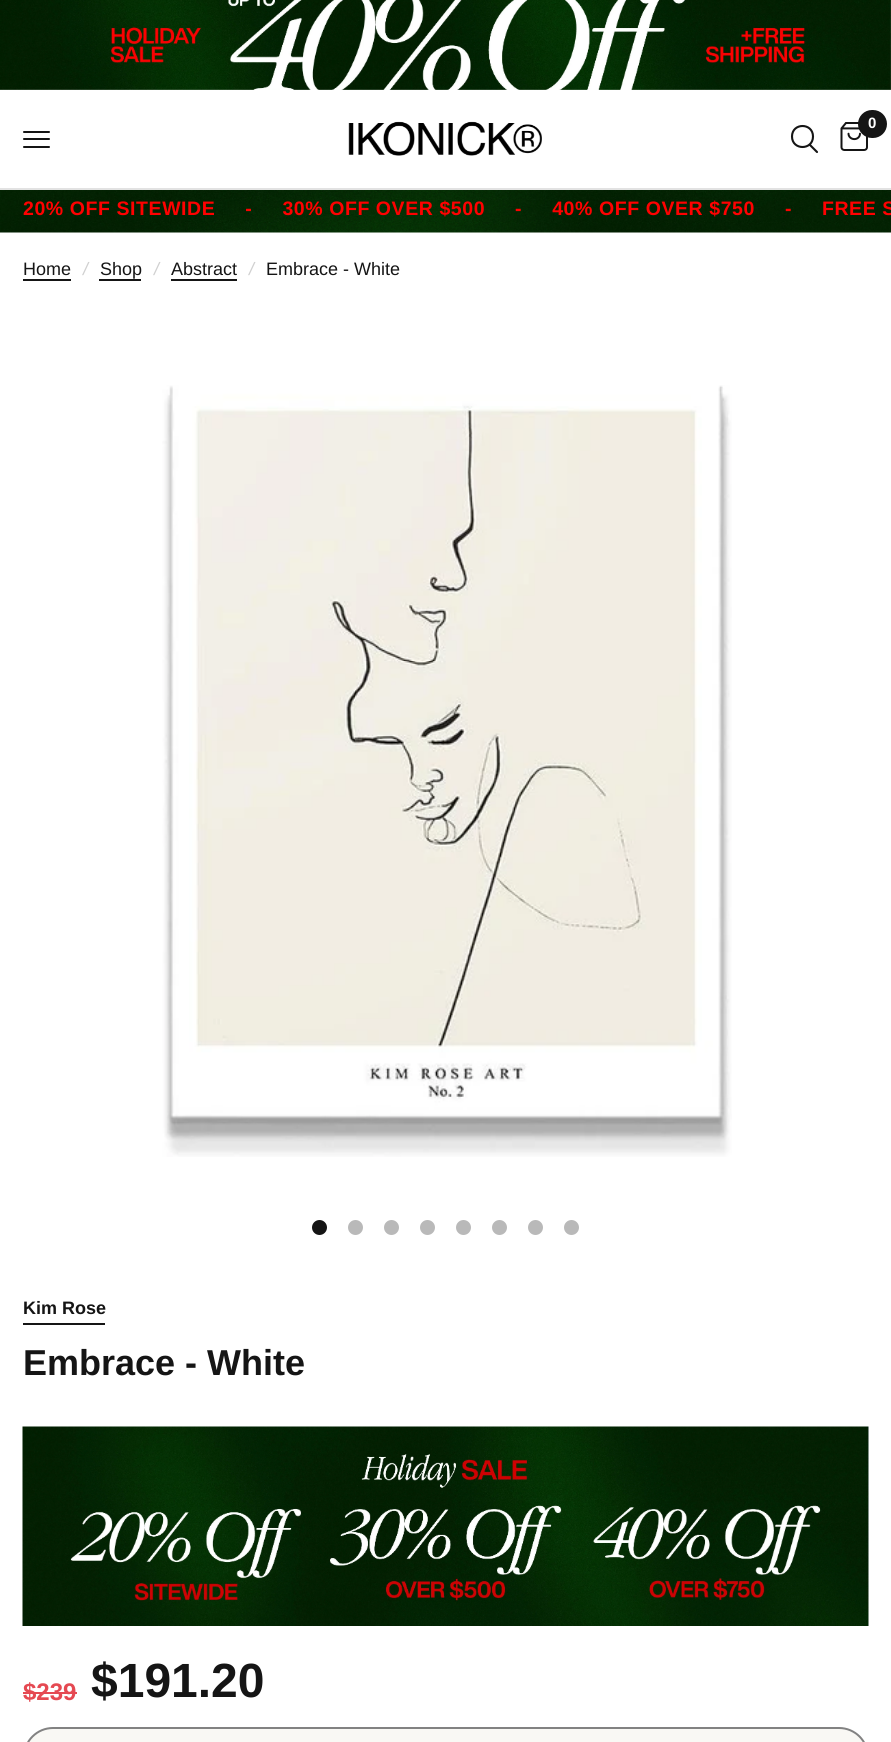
import math
import cairo



def draw_spaced(context, x, y, s, letter, word):
    context.move_to(x, y)
    for ch in s:
        context.show_text(ch)
        context.rel_move_to(letter + word * (ch == ' '), 0)


def rounded_rect(context, x, y, w, h, r):
    context.new_sub_path()
    for i, (u, v) in enumerate([(x + w - r, y + h - r), (x + r, y + h - r), (x + r, y + r), (x + w - r, y + r)]):
        context.arc(u, v, r, i * math.pi / 2, (i + 1) * math.pi / 2)
    context.close_path()


def draw_image(context, path, x, y, w, h):
    context.save()
    context.set_source_surface(cairo.ImageSurface.create_from_png(path), x, y)
    context.rectangle(x, y, w, h)
    context.fill()
    context.restore()


def draw(context):
    context.set_source_rgb(1, 1, 1)
    context.paint()
    draw_image(context, "images/1.png", 0, 0, 891, 90)
    context.set_source_rgb(226 / 255, 226 / 255, 226 / 255)
    context.rectangle(0, 188, 891, 2)
    context.fill()
    context.set_source_rgb(21 / 255, 21 / 255, 21 / 255)
    rounded_rect(context, 23, 131, 27, 2, 1)
    context.fill()
    rounded_rect(context, 23, 138, 27, 2, 1)
    context.fill()
    rounded_rect(context, 23, 146, 27, 2, 1)
    context.fill()
    draw_image(context, "images/2.png", 348, 121, 194, 35)
    draw_image(context, "images/3.png", 840, 122, 28, 29)
    rounded_rect(context, 858, 110, 29, 28, 14)
    context.fill()
    context.new_path()
    context.move_to(810, 145)
    context.line_to(817, 152)
    context.move_to(813, 136.5)
    context.curve_to(813, 150.5, 792, 150.5, 792, 136.5)
    context.curve_to(792, 122.5, 813, 122.5, 813, 136.5)
    context.close_path()
    context.set_line_width(2.1)
    context.set_line_cap(cairo.LineCap.ROUND)
    context.set_line_join(cairo.LineJoin.ROUND)
    context.stroke()
    draw_image(context, "images/4.png", 0, 190, 891, 43)
    context.rectangle(23, 279, 48, 2)
    context.fill()
    context.rectangle(99, 279, 42, 2)
    context.fill()
    context.rectangle(171, 279, 66, 2)
    context.fill()
    draw_image(context, "images/5.png", 162, 385, 570, 772)
    context.arc(319.5, 1227.5, 7.5, 0, 2 * math.pi)
    context.fill()
    context.set_source_rgb(185 / 255, 185 / 255, 185 / 255)
    context.arc(355.5, 1227.5, 7.5, 0, 2 * math.pi)
    context.fill()
    context.arc(391.5, 1227.5, 7.5, 0, 2 * math.pi)
    context.fill()
    context.arc(427.5, 1227.5, 7.5, 0, 2 * math.pi)
    context.fill()
    context.arc(463.5, 1227.5, 7.5, 0, 2 * math.pi)
    context.fill()
    context.arc(499.5, 1227.5, 7.5, 0, 2 * math.pi)
    context.fill()
    context.arc(535.5, 1227.5, 7.5, 0, 2 * math.pi)
    context.fill()
    context.arc(571.5, 1227.5, 7.5, 0, 2 * math.pi)
    context.fill()
    context.set_source_rgb(21 / 255, 21 / 255, 21 / 255)
    context.rectangle(23, 1323, 82, 2)
    context.fill()
    draw_image(context, "images/6.png", 22, 1426, 847, 200)
    context.set_source_rgb(229 / 255, 73 / 255, 82 / 255)
    context.rectangle(23, 1692, 54, 2)
    context.fill()
    context.set_source_rgb(249 / 255, 248 / 255, 244 / 255)
    rounded_rect(context, 24, 1728, 844, 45, 29)
    context.fill_preserve()
    context.set_source_rgb(130 / 255, 130 / 255, 130 / 255)
    context.set_line_width(2)
    context.set_line_cap(cairo.LineCap.BUTT)
    context.set_line_join(cairo.LineJoin.MITER)
    context.stroke()
    context.select_font_face("Liberation Sans", cairo.FontSlant.NORMAL, cairo.FontWeight.BOLD)
    context.set_font_size(15)
    context.set_source_rgb(1, 1, 1)
    context.move_to(868, 128)
    context.show_text("0")
    context.set_font_size(19.5)
    context.set_source_rgb(1, 1 / 255, 1 / 255)
    draw_spaced(context, 23, 215, "20% OFF SITEWIDE     -     30% OFF OVER $500     -     40% OFF OVER $750     -     FREE S", 0.58, 0)
    context.select_font_face("Liberation Sans")
    context.set_font_size(18)
    context.set_source_rgb(21 / 255, 21 / 255, 21 / 255)
    context.move_to(23, 275)
    context.show_text("Home")
    context.select_font_face("Liberation Sans", cairo.FontSlant.ITALIC)
    context.set_source_rgb(208 / 255, 208 / 255, 208 / 255)
    context.move_to(83, 275)
    context.show_text("/")
    context.select_font_face("Liberation Sans")
    context.set_source_rgb(21 / 255, 21 / 255, 21 / 255)
    context.move_to(100, 275)
    context.show_text("Shop")
    context.select_font_face("Liberation Sans", cairo.FontSlant.ITALIC)
    context.set_source_rgb(208 / 255, 208 / 255, 208 / 255)
    context.move_to(154, 275)
    context.show_text("/")
    context.select_font_face("Liberation Sans")
    context.set_source_rgb(21 / 255, 21 / 255, 21 / 255)
    context.move_to(171, 275)
    context.show_text("Abstract")
    context.select_font_face("Liberation Sans", cairo.FontSlant.ITALIC)
    context.set_source_rgb(208 / 255, 208 / 255, 208 / 255)
    context.move_to(249, 275)
    context.show_text("/")
    context.select_font_face("Liberation Sans")
    context.set_source_rgb(21 / 255, 21 / 255, 21 / 255)
    context.move_to(266, 275)
    context.show_text("Embrace - White")
    context.select_font_face("Liberation Sans", cairo.FontSlant.NORMAL, cairo.FontWeight.BOLD)
    context.move_to(23, 1314)
    context.show_text("Kim Rose")
    context.set_font_size(36)
    context.move_to(23, 1375)
    context.show_text("Embrace - White")
    context.set_font_size(24)
    context.set_source_rgb(229 / 255, 73 / 255, 82 / 255)
    context.move_to(23, 1700)
    context.show_text("$239")
    context.set_font_size(48)
    context.set_source_rgb(21 / 255, 21 / 255, 21 / 255)
    context.move_to(91, 1697)
    context.show_text("$191.20")


surface = cairo.ImageSurface(cairo.Format.RGB24, 891, 1742)
context = cairo.Context(surface)
options = cairo.FontOptions()
options.set_hint_metrics(cairo.HintMetrics.OFF)
options.set_hint_style(cairo.HintStyle.NONE)
context.set_font_options(options)
context.set_miter_limit(4)
draw(context)
surface.write_to_png("out.png")
